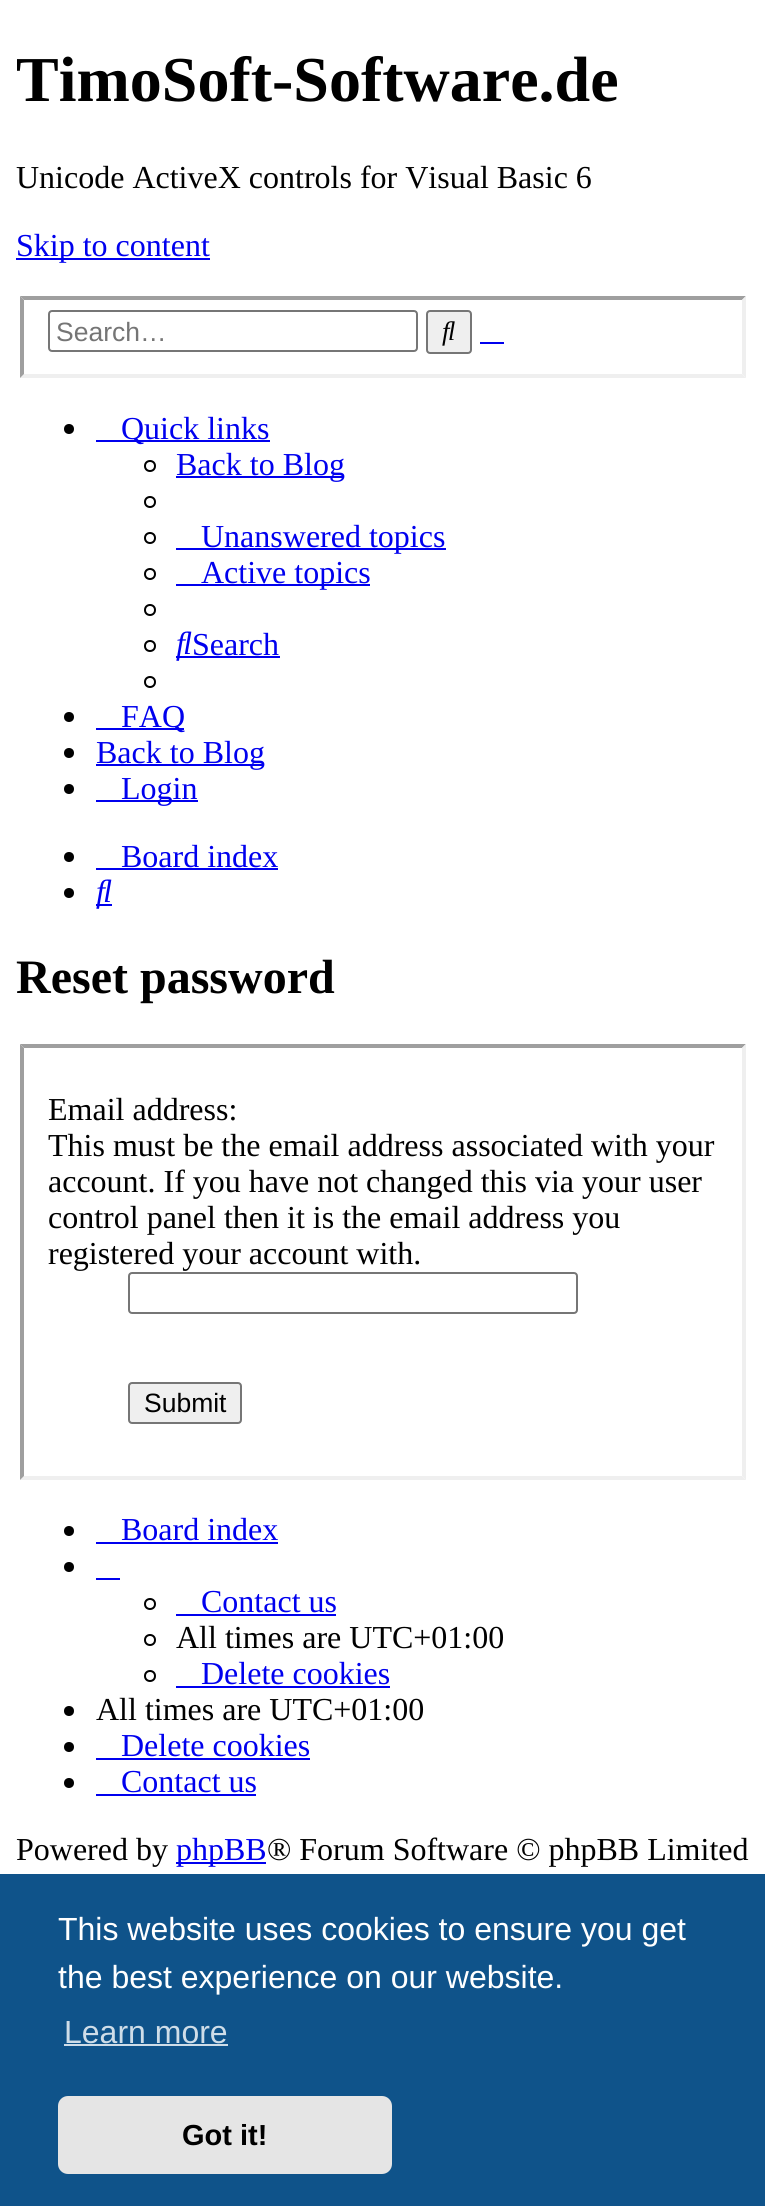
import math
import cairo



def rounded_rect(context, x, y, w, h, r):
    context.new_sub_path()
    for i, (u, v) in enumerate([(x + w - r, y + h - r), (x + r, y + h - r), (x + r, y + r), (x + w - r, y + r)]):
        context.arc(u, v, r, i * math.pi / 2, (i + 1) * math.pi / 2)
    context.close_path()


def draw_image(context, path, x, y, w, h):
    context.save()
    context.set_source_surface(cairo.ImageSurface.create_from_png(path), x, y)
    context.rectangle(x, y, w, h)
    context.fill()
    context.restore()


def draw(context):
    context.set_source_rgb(1, 1, 1)
    context.paint()
    context.set_source_rgb(0, 0, 238 / 255)
    context.rectangle(16, 258, 194, 2)
    context.fill()
    context.set_source_rgb(159 / 255, 159 / 255, 159 / 255)
    context.new_path()
    context.move_to(20, 296)
    context.line_to(746, 296)
    context.line_to(742, 300)
    context.line_to(24, 300)
    context.close_path()
    context.fill()
    context.set_source_rgb(239 / 255, 239 / 255, 239 / 255)
    context.new_path()
    context.move_to(746, 296)
    context.line_to(746, 378)
    context.line_to(742, 374)
    context.line_to(742, 300)
    context.close_path()
    context.fill()
    context.new_path()
    context.move_to(746, 378)
    context.line_to(20, 378)
    context.line_to(24, 374)
    context.line_to(742, 374)
    context.close_path()
    context.fill()
    context.set_source_rgb(159 / 255, 159 / 255, 159 / 255)
    context.new_path()
    context.move_to(20, 378)
    context.line_to(20, 296)
    context.line_to(24, 300)
    context.line_to(24, 374)
    context.close_path()
    context.fill()
    rounded_rect(context, 49, 311, 368, 40, 3)
    context.set_source_rgb(118 / 255, 118 / 255, 118 / 255)
    context.stroke()
    context.set_source_rgb(239 / 255, 239 / 255, 239 / 255)
    rounded_rect(context, 427, 311, 44, 42, 3)
    context.fill_preserve()
    context.set_source_rgb(118 / 255, 118 / 255, 118 / 255)
    context.stroke()
    draw_image(context, "images/1.png", 442, 321, 13, 25)
    context.set_source_rgb(0, 0, 238 / 255)
    context.rectangle(480, 342, 24, 2)
    context.fill()
    context.set_source_rgb(0, 0, 0)
    context.arc(69, 429, 5, 0, 2 * math.pi)
    context.fill()
    context.set_source_rgb(0, 0, 238 / 255)
    context.rectangle(96, 440, 174, 2)
    context.fill()
    context.arc(150, 466, 5, 0, 2 * math.pi)
    context.set_source_rgb(0, 0, 0)
    context.stroke()
    context.set_source_rgb(0, 0, 238 / 255)
    context.rectangle(176, 476, 168, 2)
    context.fill()
    context.arc(150, 502, 5, 0, 2 * math.pi)
    context.set_source_rgb(0, 0, 0)
    context.stroke()
    context.arc(150, 538, 5, 0, 2 * math.pi)
    context.stroke()
    context.set_source_rgb(0, 0, 238 / 255)
    context.rectangle(176, 548, 270, 2)
    context.fill()
    context.arc(150, 574, 5, 0, 2 * math.pi)
    context.set_source_rgb(0, 0, 0)
    context.stroke()
    context.set_source_rgb(0, 0, 238 / 255)
    context.rectangle(176, 584, 194, 2)
    context.fill()
    context.arc(150, 610, 5, 0, 2 * math.pi)
    context.set_source_rgb(0, 0, 0)
    context.stroke()
    context.arc(150, 646, 5, 0, 2 * math.pi)
    context.stroke()
    context.set_source_rgb(0, 0, 238 / 255)
    context.rectangle(176, 656, 104, 2)
    context.fill()
    draw_image(context, "images/2.png", 176, 631, 16, 30)
    context.arc(150, 682, 5, 0, 2 * math.pi)
    context.set_source_rgb(0, 0, 0)
    context.stroke()
    context.arc(69, 717, 5, 0, 2 * math.pi)
    context.fill()
    context.set_source_rgb(0, 0, 238 / 255)
    context.rectangle(96, 728, 88, 2)
    context.fill()
    context.set_source_rgb(0, 0, 0)
    context.arc(69, 753, 5, 0, 2 * math.pi)
    context.fill()
    context.set_source_rgb(0, 0, 238 / 255)
    context.rectangle(96, 764, 168, 2)
    context.fill()
    context.set_source_rgb(0, 0, 0)
    context.arc(69, 789, 5, 0, 2 * math.pi)
    context.fill()
    context.set_source_rgb(0, 0, 238 / 255)
    context.rectangle(96, 800, 102, 2)
    context.fill()
    context.set_source_rgb(0, 0, 0)
    context.arc(69, 857, 5, 0, 2 * math.pi)
    context.fill()
    context.set_source_rgb(0, 0, 238 / 255)
    context.rectangle(96, 868, 182, 2)
    context.fill()
    context.set_source_rgb(0, 0, 0)
    context.arc(69, 893, 5, 0, 2 * math.pi)
    context.fill()
    context.set_source_rgb(0, 0, 238 / 255)
    context.rectangle(96, 904, 16, 2)
    context.fill()
    draw_image(context, "images/2.png", 96, 879, 16, 30)
    context.set_source_rgb(159 / 255, 159 / 255, 159 / 255)
    context.new_path()
    context.move_to(20, 1044)
    context.line_to(746, 1044)
    context.line_to(742, 1048)
    context.line_to(24, 1048)
    context.close_path()
    context.fill()
    context.set_source_rgb(239 / 255, 239 / 255, 239 / 255)
    context.new_path()
    context.move_to(746, 1044)
    context.line_to(746, 1480)
    context.line_to(742, 1476)
    context.line_to(742, 1048)
    context.close_path()
    context.fill()
    context.new_path()
    context.move_to(746, 1480)
    context.line_to(20, 1480)
    context.line_to(24, 1476)
    context.line_to(742, 1476)
    context.close_path()
    context.fill()
    context.set_source_rgb(159 / 255, 159 / 255, 159 / 255)
    context.new_path()
    context.move_to(20, 1480)
    context.line_to(20, 1044)
    context.line_to(24, 1048)
    context.line_to(24, 1476)
    context.close_path()
    context.fill()
    rounded_rect(context, 129, 1273, 448, 40, 3)
    context.set_source_rgb(118 / 255, 118 / 255, 118 / 255)
    context.stroke()
    context.set_source_rgb(239 / 255, 239 / 255, 239 / 255)
    rounded_rect(context, 129, 1383, 112, 40, 3)
    context.fill_preserve()
    context.set_source_rgb(118 / 255, 118 / 255, 118 / 255)
    context.stroke()
    context.set_source_rgb(0, 0, 0)
    context.arc(69, 1531, 5, 0, 2 * math.pi)
    context.fill()
    context.set_source_rgb(0, 0, 238 / 255)
    context.rectangle(96, 1542, 182, 2)
    context.fill()
    context.set_source_rgb(0, 0, 0)
    context.arc(69, 1567, 5, 0, 2 * math.pi)
    context.fill()
    context.set_source_rgb(0, 0, 238 / 255)
    context.rectangle(96, 1578, 24, 2)
    context.fill()
    context.arc(150, 1604, 5, 0, 2 * math.pi)
    context.set_source_rgb(0, 0, 0)
    context.stroke()
    context.set_source_rgb(0, 0, 238 / 255)
    context.rectangle(176, 1614, 160, 2)
    context.fill()
    context.arc(150, 1640, 5, 0, 2 * math.pi)
    context.set_source_rgb(0, 0, 0)
    context.stroke()
    context.arc(150, 1676, 5, 0, 2 * math.pi)
    context.stroke()
    context.set_source_rgb(0, 0, 238 / 255)
    context.rectangle(176, 1686, 214, 2)
    context.fill()
    context.set_source_rgb(0, 0, 0)
    context.arc(69, 1711, 5, 0, 2 * math.pi)
    context.fill()
    context.arc(69, 1747, 5, 0, 2 * math.pi)
    context.fill()
    context.set_source_rgb(0, 0, 238 / 255)
    context.rectangle(96, 1758, 214, 2)
    context.fill()
    context.set_source_rgb(0, 0, 0)
    context.arc(69, 1783, 5, 0, 2 * math.pi)
    context.fill()
    context.set_source_rgb(0, 0, 238 / 255)
    context.rectangle(96, 1794, 160, 2)
    context.fill()
    context.rectangle(176, 1862, 90, 2)
    context.fill()
    context.set_source_rgb(15 / 255, 83 / 255, 138 / 255)
    context.rectangle(0, 1874, 765, 332)
    context.fill()
    context.set_source_rgb(207 / 255, 221 / 255, 232 / 255)
    context.rectangle(64, 2044, 164, 2)
    context.fill()
    context.set_source_rgb(229 / 255, 229 / 255, 229 / 255)
    rounded_rect(context, 58, 2096, 334, 78, 10)
    context.fill()
    context.select_font_face("Liberation Serif", cairo.FontSlant.NORMAL, cairo.FontWeight.BOLD)
    context.set_font_size(64)
    context.set_source_rgb(0, 0, 0)
    context.move_to(16, 101)
    context.show_text("TimoSoft-Software.de")
    context.select_font_face("Liberation Serif")
    context.set_font_size(32)
    context.move_to(16, 188)
    context.show_text("Unicode ActiveX controls for Visual Basic 6")
    context.set_source_rgb(0, 0, 238 / 255)
    context.move_to(16, 256)
    context.show_text("Skip to content")
    context.select_font_face("Liberation Sans")
    context.set_font_size(26.5)
    context.set_source_rgb(117 / 255, 117 / 255, 117 / 255)
    context.move_to(56, 341)
    context.show_text("Search…")
    context.select_font_face("Liberation Serif")
    context.set_font_size(32)
    context.set_source_rgb(0, 0, 238 / 255)
    context.move_to(121, 439)
    context.show_text("Quick links")
    context.move_to(176, 475)
    context.show_text("Back to Blog")
    context.move_to(201, 547)
    context.show_text("Unanswered topics")
    context.move_to(201, 583)
    context.show_text("Active topics")
    context.move_to(192, 655)
    context.show_text("Search")
    context.move_to(121, 727)
    context.show_text("FAQ")
    context.move_to(96, 763)
    context.show_text("Back to Blog")
    context.move_to(121, 799)
    context.show_text("Login")
    context.move_to(121, 867)
    context.show_text("Board index")
    context.select_font_face("Liberation Serif", cairo.FontSlant.NORMAL, cairo.FontWeight.BOLD)
    context.set_font_size(48)
    context.set_source_rgb(0, 0, 0)
    context.move_to(16, 993)
    context.show_text("Reset password")
    context.select_font_face("Liberation Serif")
    context.set_font_size(32)
    context.move_to(48, 1120)
    context.show_text("Email address:")
    context.move_to(48, 1156)
    context.show_text("This must be the email address associated with your")
    context.move_to(48, 1192)
    context.show_text("account. If you have not changed this via your user")
    context.move_to(48, 1228)
    context.show_text("control panel then it is the email address you")
    context.move_to(48, 1264)
    context.show_text("registered your account with.")
    context.select_font_face("Liberation Sans")
    context.set_font_size(26.5)
    context.move_to(144, 1412)
    context.show_text("Submit")
    context.select_font_face("Liberation Serif")
    context.set_font_size(32)
    context.set_source_rgb(0, 0, 238 / 255)
    context.move_to(121, 1540)
    context.show_text("Board index")
    context.move_to(201, 1612)
    context.show_text("Contact us")
    context.set_source_rgb(0, 0, 0)
    context.move_to(176, 1648)
    context.show_text("All times are UTC+01:00")
    context.set_source_rgb(0, 0, 238 / 255)
    context.move_to(201, 1684)
    context.show_text("Delete cookies")
    context.set_source_rgb(0, 0, 0)
    context.move_to(96, 1720)
    context.show_text("All times are UTC+01:00")
    context.set_source_rgb(0, 0, 238 / 255)
    context.move_to(121, 1756)
    context.show_text("Delete cookies")
    context.move_to(121, 1792)
    context.show_text("Contact us")
    context.set_source_rgb(0, 0, 0)
    context.move_to(16, 1860)
    context.show_text("Powered by")
    context.set_source_rgb(0, 0, 238 / 255)
    context.move_to(176, 1860)
    context.show_text("phpBB")
    context.set_source_rgb(0, 0, 0)
    context.move_to(267, 1860)
    context.show_text("® Forum Software © phpBB Limited")
    context.select_font_face("Liberation Sans")
    context.set_source_rgb(1, 1, 1)
    context.move_to(58, 1940)
    context.show_text("This website uses cookies to ensure you get")
    context.move_to(58, 1988)
    context.show_text("the best experience on our website.")
    context.set_source_rgb(207 / 255, 221 / 255, 232 / 255)
    context.move_to(64, 2043)
    context.show_text("Learn more")
    context.select_font_face("Liberation Sans", cairo.FontSlant.NORMAL, cairo.FontWeight.BOLD)
    context.set_font_size(29)
    context.set_source_rgb(0, 0, 0)
    context.move_to(182, 2145)
    context.show_text("Got it!")


surface = cairo.ImageSurface(cairo.Format.RGB24, 765, 2206)
context = cairo.Context(surface)
options = cairo.FontOptions()
options.set_hint_metrics(cairo.HintMetrics.OFF)
options.set_hint_style(cairo.HintStyle.NONE)
context.set_font_options(options)
context.set_miter_limit(4)
draw(context)
surface.write_to_png("out.png")
